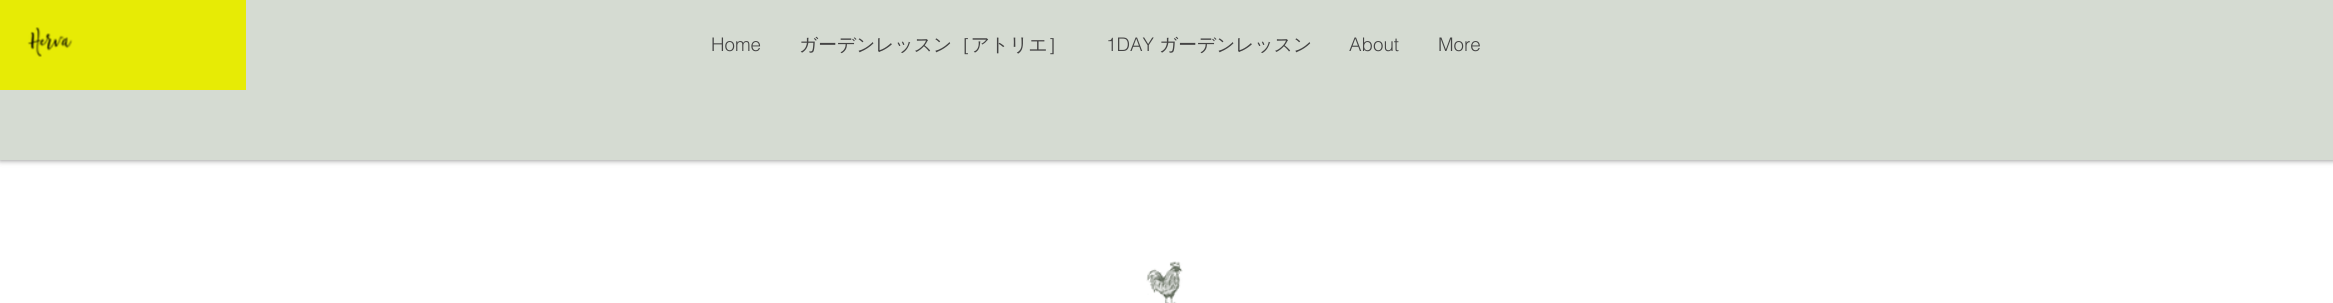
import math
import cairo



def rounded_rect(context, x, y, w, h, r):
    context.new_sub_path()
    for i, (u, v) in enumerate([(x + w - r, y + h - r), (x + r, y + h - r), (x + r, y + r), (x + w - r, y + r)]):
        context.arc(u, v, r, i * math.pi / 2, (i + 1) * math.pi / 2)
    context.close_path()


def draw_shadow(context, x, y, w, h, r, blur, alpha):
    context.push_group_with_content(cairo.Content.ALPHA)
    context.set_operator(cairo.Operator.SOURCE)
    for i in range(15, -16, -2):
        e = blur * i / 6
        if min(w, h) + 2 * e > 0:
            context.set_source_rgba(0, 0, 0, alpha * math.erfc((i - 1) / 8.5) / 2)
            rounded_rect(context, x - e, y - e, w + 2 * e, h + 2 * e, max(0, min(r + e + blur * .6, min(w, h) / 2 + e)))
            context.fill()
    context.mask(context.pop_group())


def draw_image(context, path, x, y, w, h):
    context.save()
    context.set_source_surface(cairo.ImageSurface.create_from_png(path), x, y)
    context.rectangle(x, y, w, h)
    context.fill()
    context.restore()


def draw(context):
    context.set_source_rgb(1, 1, 1)
    context.paint()
    context.set_source_rgb(0, 0, 0)
    draw_shadow(context, 0, 0, 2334, 160, 0, 3, 0.5)
    context.set_source_rgb(213 / 255, 219 / 255, 210 / 255)
    context.rectangle(0, 0, 2333, 160)
    context.fill()
    context.set_source_rgb(231 / 255, 235 / 255, 5 / 255)
    context.rectangle(0, 0, 246, 90)
    context.fill()
    draw_image(context, "images/1.png", 27, 27, 46, 30)
    draw_image(context, "images/2.png", 1146, 261, 37, 42)
    context.select_font_face("helvetica Light")
    context.set_font_size(18.75)
    context.set_source_rgb(68 / 255, 68 / 255, 68 / 255)
    context.move_to(711, 51)
    context.show_text("Home")
    context.select_font_face("WenQuanYi Zen Hei Medium")
    context.move_to(799, 51)
    context.show_text("ガーデンレッスン［アトリエ］")
    context.select_font_face("helvetica Light")
    context.move_to(1106, 51)
    context.show_text("1DAY")
    context.select_font_face("WenQuanYi Zen Hei Medium")
    context.move_to(1159, 51)
    context.show_text("ガーデンレッスン")
    context.select_font_face("helvetica Light")
    context.move_to(1349, 51)
    context.show_text("About")
    context.move_to(1438, 51)
    context.show_text("More")


surface = cairo.ImageSurface(cairo.Format.RGB24, 2333, 303)
context = cairo.Context(surface)
options = cairo.FontOptions()
options.set_hint_metrics(cairo.HintMetrics.OFF)
options.set_hint_style(cairo.HintStyle.NONE)
context.set_font_options(options)
context.set_miter_limit(4)
draw(context)
surface.write_to_png("out.png")
